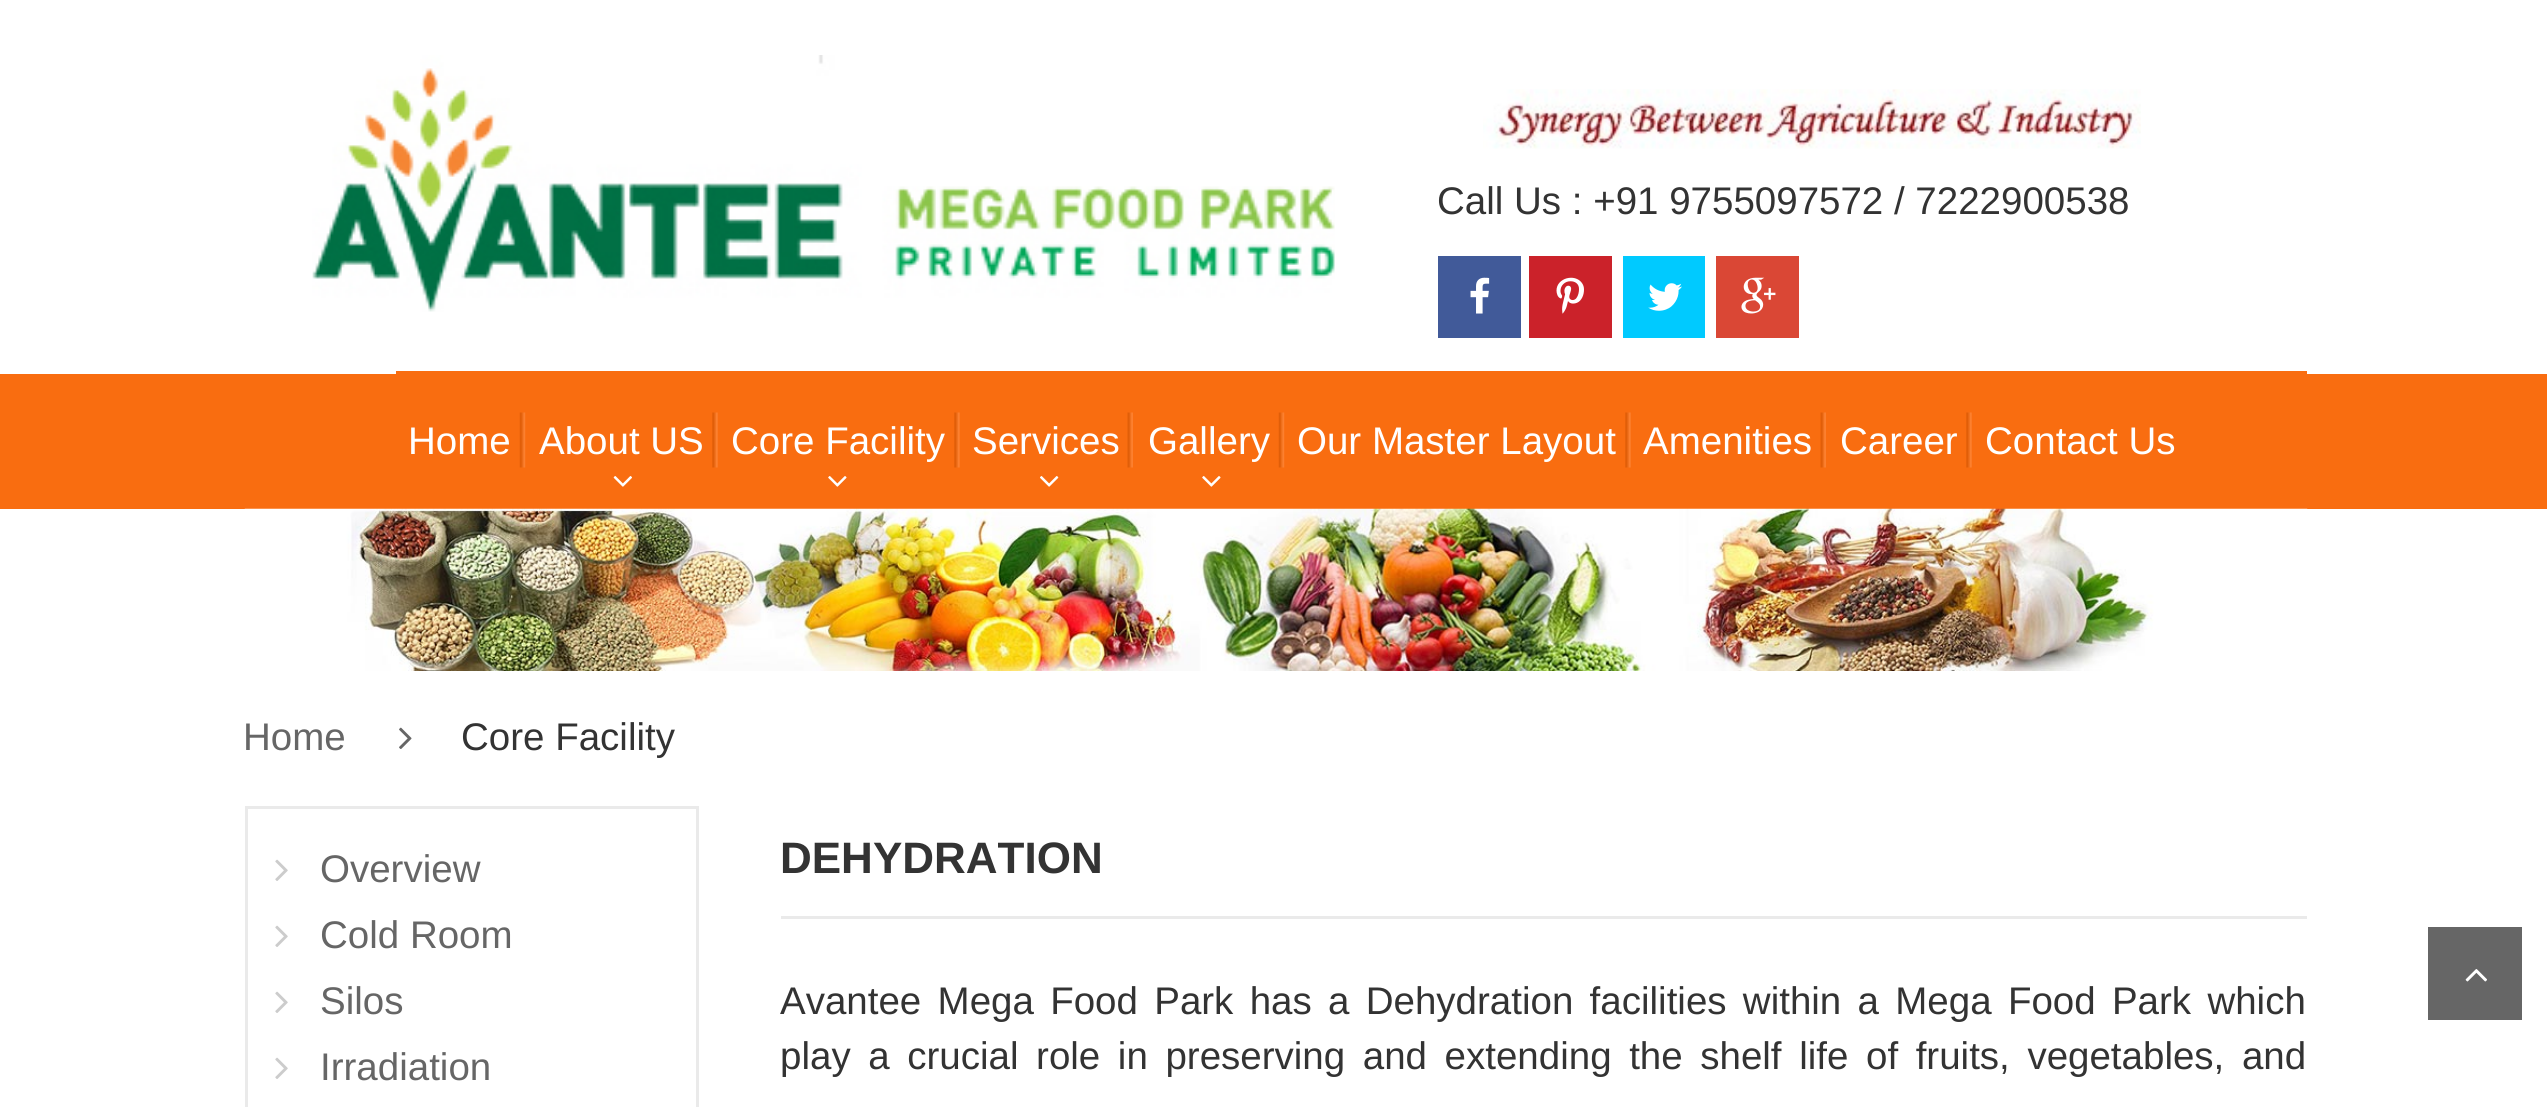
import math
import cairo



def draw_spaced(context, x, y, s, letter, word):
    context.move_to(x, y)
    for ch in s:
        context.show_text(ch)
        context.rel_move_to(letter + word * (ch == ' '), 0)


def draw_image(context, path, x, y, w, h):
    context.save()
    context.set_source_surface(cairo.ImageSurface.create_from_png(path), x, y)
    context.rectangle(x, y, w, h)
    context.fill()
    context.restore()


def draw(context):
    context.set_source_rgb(1, 1, 1)
    context.paint()
    draw_image(context, "images/1.png", 312, 55, 1023, 257)
    draw_image(context, "images/2.png", 1483, 89, 658, 60)
    context.set_source_rgb(65 / 255, 90 / 255, 153 / 255)
    context.rectangle(1438, 256, 83, 82)
    context.fill()
    draw_image(context, "images/3.png", 1470, 277, 20, 37)
    context.set_source_rgb(203 / 255, 34 / 255, 42 / 255)
    context.rectangle(1529, 256, 83, 82)
    context.fill()
    draw_image(context, "images/4.png", 1556, 277, 28, 37)
    context.set_source_rgb(0, 202 / 255, 1)
    context.rectangle(1623, 256, 82, 82)
    context.fill()
    draw_image(context, "images/5.png", 1648, 283, 34, 28)
    context.set_source_rgb(218 / 255, 71 / 255, 53 / 255)
    context.rectangle(1716, 256, 83, 82)
    context.fill()
    draw_image(context, "images/6.png", 1741, 277, 35, 37)
    context.set_source_rgb(249 / 255, 109 / 255, 16 / 255)
    context.rectangle(0, 374, 2547, 135)
    context.fill()
    context.rectangle(396, 371, 1911, 3)
    context.fill()
    draw_image(context, "images/7.png", 519, 412, 7, 56)
    draw_image(context, "images/8.png", 712, 412, 6, 56)
    draw_image(context, "images/9.png", 613, 476, 19, 11)
    draw_image(context, "images/8.png", 954, 412, 6, 56)
    draw_image(context, "images/10.png", 828, 476, 19, 11)
    draw_image(context, "images/11.png", 1127, 412, 6, 56)
    draw_image(context, "images/12.png", 1040, 476, 19, 11)
    draw_image(context, "images/13.png", 1278, 412, 7, 56)
    draw_image(context, "images/10.png", 1202, 476, 19, 11)
    draw_image(context, "images/8.png", 1625, 412, 6, 56)
    draw_image(context, "images/11.png", 1820, 412, 6, 56)
    draw_image(context, "images/8.png", 1966, 412, 6, 56)
    draw_image(context, "images/14.png", 244, 508, 2064, 163)
    draw_image(context, "images/15.png", 399, 727, 13, 22)
    context.rectangle(246.5, 807.5, 451, 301)
    context.set_source_rgb(234 / 255, 234 / 255, 234 / 255)
    context.set_line_width(3)
    context.stroke()
    draw_image(context, "images/16.png", 275, 859, 13, 22)
    draw_image(context, "images/16.png", 275, 925, 13, 22)
    draw_image(context, "images/16.png", 275, 991, 13, 22)
    draw_image(context, "images/16.png", 275, 1057, 13, 22)
    context.rectangle(781, 916, 1526, 3)
    context.fill()
    context.set_source_rgb(102 / 255, 102 / 255, 102 / 255)
    context.rectangle(2428, 927, 94, 93)
    context.fill()
    draw_image(context, "images/17.png", 2465, 969, 22, 13)
    context.select_font_face("Liberation Sans")
    context.set_font_size(38.5)
    context.set_source_rgb(51 / 255, 51 / 255, 51 / 255)
    context.move_to(1437, 214)
    context.show_text("Call Us : +91 9755097572 / 7222900538")
    context.set_source_rgb(1, 1, 1)
    context.move_to(408, 454)
    context.show_text("Home")
    context.move_to(539, 454)
    context.show_text("About US")
    context.move_to(731, 454)
    context.show_text("Core Facility")
    context.move_to(972, 454)
    context.show_text("Services")
    context.move_to(1148, 454)
    context.show_text("Gallery")
    context.move_to(1297, 454)
    context.show_text("Our Master Layout")
    context.move_to(1643, 454)
    context.show_text("Amenities")
    context.move_to(1840, 454)
    context.show_text("Career")
    context.move_to(1985, 454)
    context.show_text("Contact Us")
    context.set_source_rgb(102 / 255, 102 / 255, 102 / 255)
    context.move_to(243, 750)
    context.show_text("Home")
    context.set_source_rgb(51 / 255, 51 / 255, 51 / 255)
    context.move_to(461, 750)
    context.show_text("Core Facility")
    context.set_source_rgb(102 / 255, 102 / 255, 102 / 255)
    context.move_to(320, 882)
    context.show_text("Overview")
    context.move_to(320, 948)
    context.show_text("Cold Room")
    context.move_to(320, 1014)
    context.show_text("Silos")
    context.move_to(320, 1080)
    context.show_text("Irradiation")
    context.select_font_face("Liberation Sans", cairo.FontSlant.NORMAL, cairo.FontWeight.BOLD)
    context.set_font_size(44)
    context.set_source_rgb(51 / 255, 51 / 255, 51 / 255)
    context.move_to(780, 873)
    context.show_text("DEHYDRATION")
    context.select_font_face("Liberation Sans")
    context.set_font_size(38.5)
    draw_spaced(context, 780, 1014, "Avantee Mega Food Park has a Dehydration facilities within a Mega Food Park which", 0, 5.6)
    draw_spaced(context, 780, 1069, "play a crucial role in preserving and extending the shelf life of fruits, vegetables, and", 0, 6.9)


surface = cairo.ImageSurface(cairo.Format.RGB24, 2547, 1107)
context = cairo.Context(surface)
options = cairo.FontOptions()
options.set_hint_metrics(cairo.HintMetrics.OFF)
options.set_hint_style(cairo.HintStyle.NONE)
context.set_font_options(options)
context.set_miter_limit(4)
draw(context)
surface.write_to_png("out.png")
